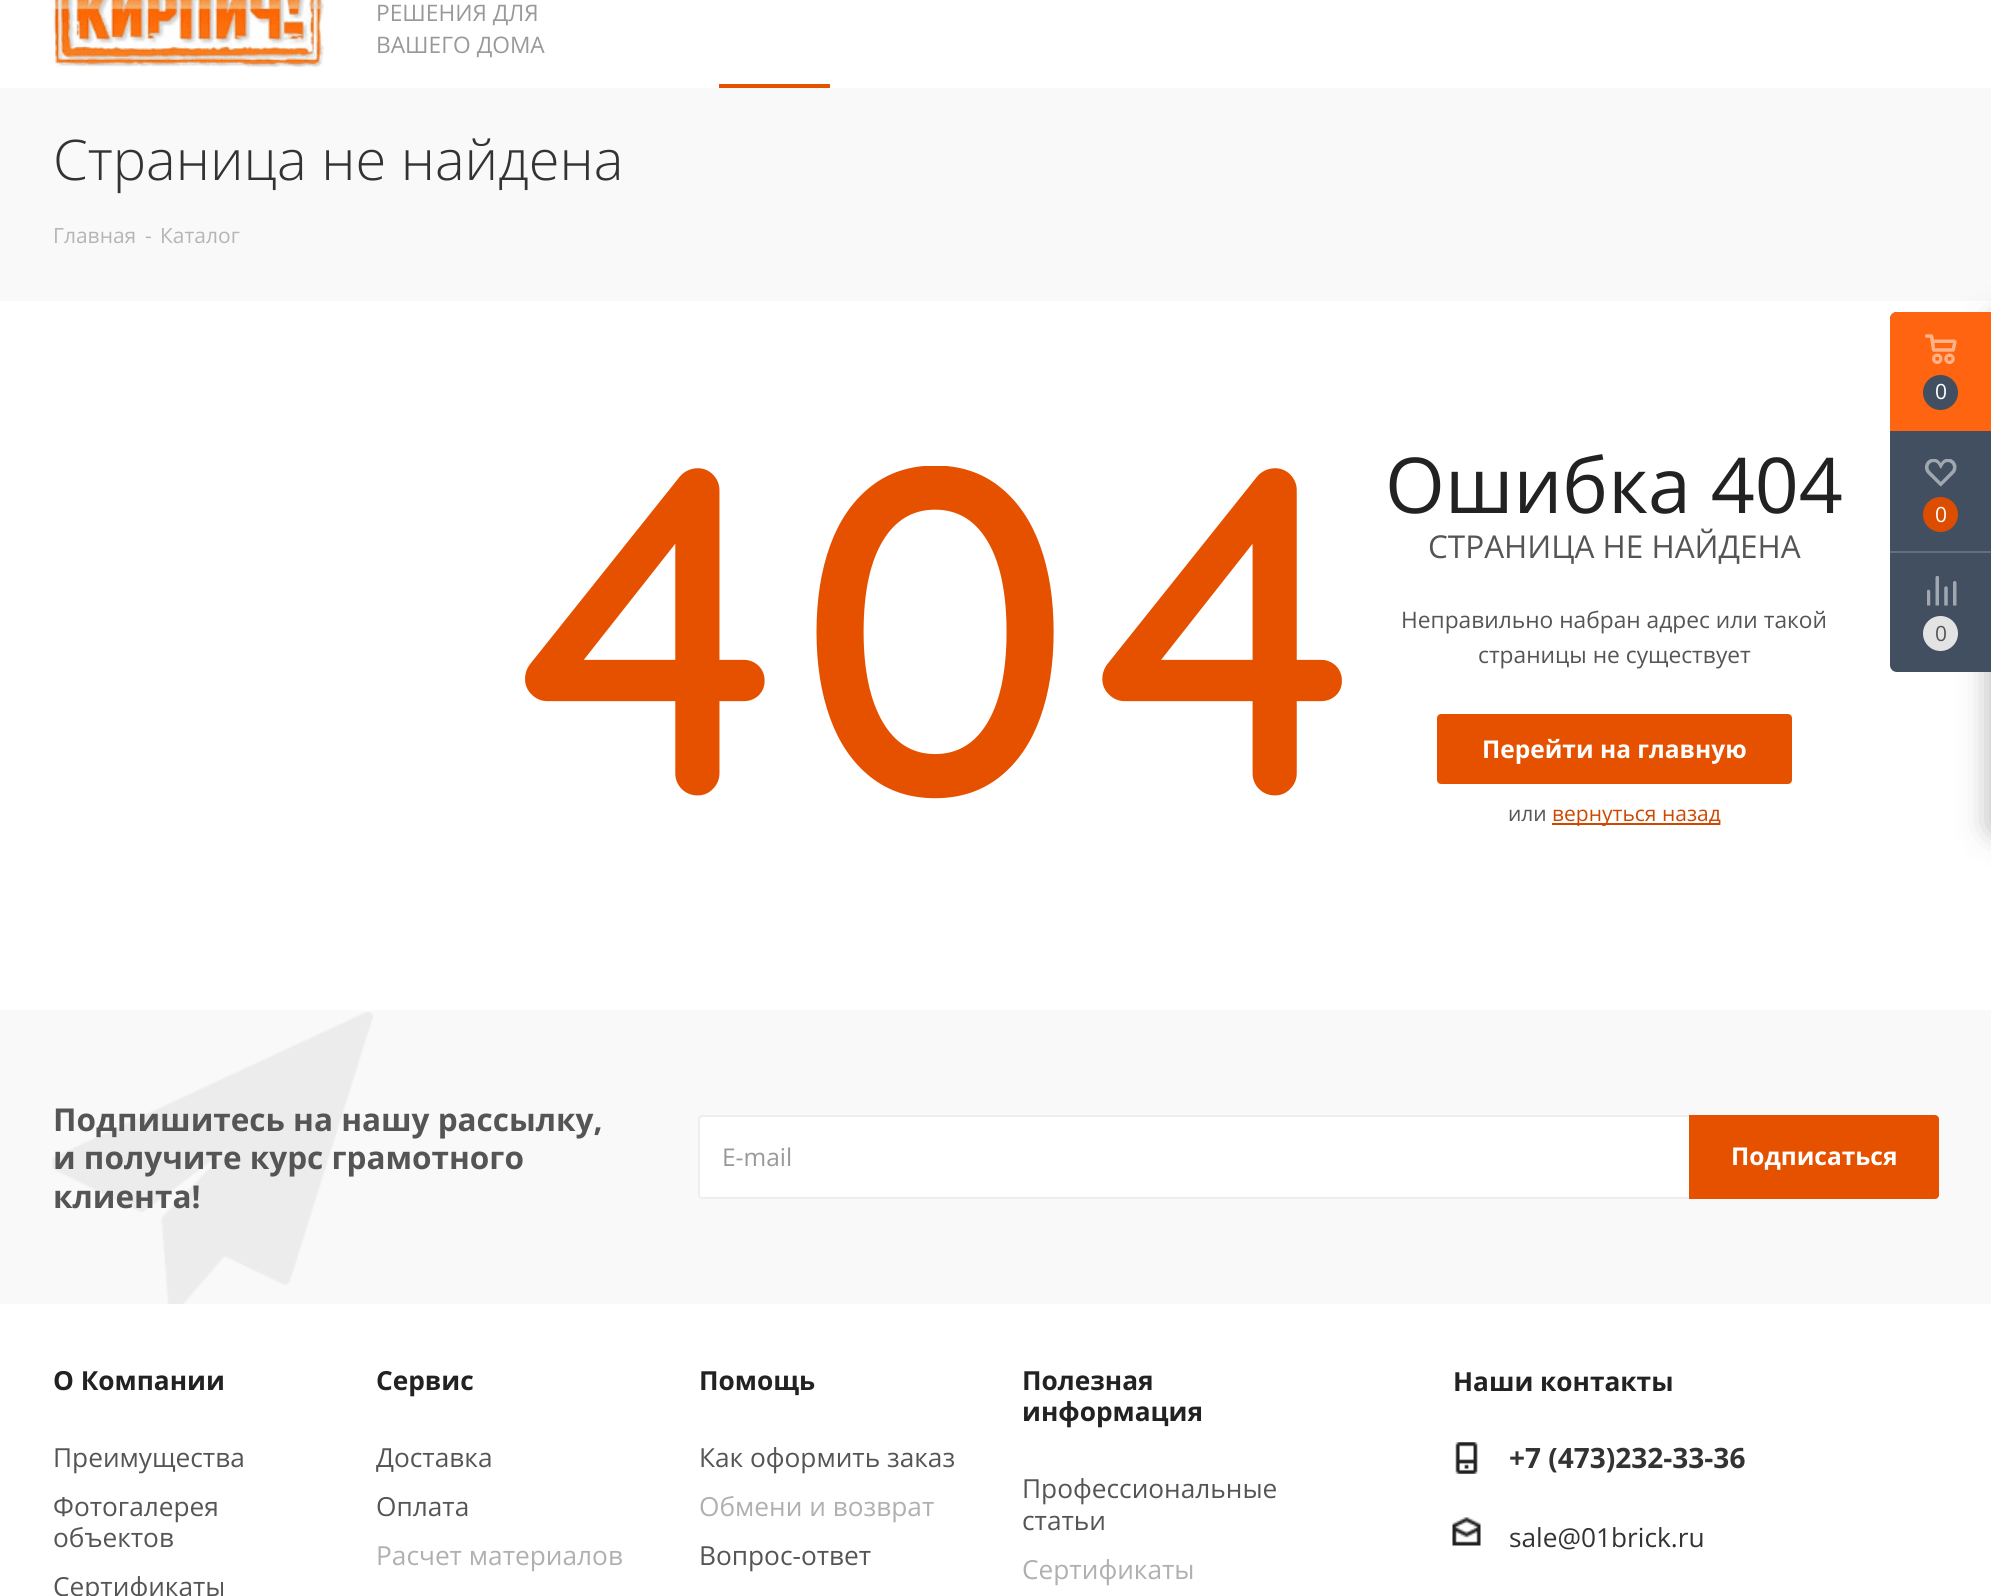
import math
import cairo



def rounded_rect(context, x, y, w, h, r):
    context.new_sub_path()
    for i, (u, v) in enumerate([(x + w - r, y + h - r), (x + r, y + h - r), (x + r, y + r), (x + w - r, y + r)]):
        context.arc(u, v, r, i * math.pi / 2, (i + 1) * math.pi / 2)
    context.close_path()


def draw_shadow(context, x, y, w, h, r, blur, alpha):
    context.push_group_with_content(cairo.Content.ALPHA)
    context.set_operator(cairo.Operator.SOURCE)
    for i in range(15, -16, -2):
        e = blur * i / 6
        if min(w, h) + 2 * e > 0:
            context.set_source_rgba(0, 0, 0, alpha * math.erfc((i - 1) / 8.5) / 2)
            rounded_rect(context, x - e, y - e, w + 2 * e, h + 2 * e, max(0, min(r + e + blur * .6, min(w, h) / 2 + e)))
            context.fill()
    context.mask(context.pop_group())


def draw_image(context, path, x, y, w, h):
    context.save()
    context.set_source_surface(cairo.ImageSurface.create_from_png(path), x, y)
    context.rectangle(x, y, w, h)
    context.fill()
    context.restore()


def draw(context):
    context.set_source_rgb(1, 1, 1)
    context.paint()
    draw_image(context, "images/1.png", 53, 0, 271, 67)
    context.set_source_rgb(230 / 255, 81 / 255, 0)
    context.rectangle(719, 84, 111, 4)
    context.fill()
    context.set_source_rgb(249 / 255, 249 / 255, 249 / 255)
    context.rectangle(0, 88, 1991, 213)
    context.fill()
    draw_image(context, "images/2.png", 525, 466, 817, 333)
    context.set_source_rgb(230 / 255, 81 / 255, 0)
    rounded_rect(context, 1438, 715, 353, 68, 3)
    context.fill_preserve()
    context.stroke()
    context.set_source_rgb(205 / 255, 72 / 255, 0)
    context.rectangle(1552, 823, 168, 2)
    context.fill()
    context.set_source_rgb(44 / 255, 44 / 255, 44 / 255)
    draw_shadow(context, 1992, 322, 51, 509, 4, 16, 0.4)
    context.set_source_rgb(66 / 255, 79 / 255, 96 / 255)
    context.new_path()
    context.move_to(1897, 312)
    context.line_to(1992, 312)
    context.line_to(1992, 672)
    context.line_to(1897, 672)
    context.curve_to(1893, 672, 1890, 669, 1890, 665)
    context.line_to(1890, 319)
    context.curve_to(1890, 315, 1893, 312, 1897, 312)
    context.close_path()
    context.fill()
    context.set_source_rgb(1, 100 / 255, 16 / 255)
    context.new_path()
    context.move_to(1897, 312)
    context.line_to(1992, 312)
    context.line_to(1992, 431)
    context.line_to(1890, 431)
    context.line_to(1890, 319)
    context.curve_to(1890, 315, 1893, 312, 1897, 312)
    context.close_path()
    context.fill()
    draw_image(context, "images/3.png", 1925, 334, 32, 30)
    context.set_source_rgb(66 / 255, 79 / 255, 96 / 255)
    context.arc(1940.5, 392.5, 17.5, 0, 2 * math.pi)
    context.fill()
    draw_image(context, "images/4.png", 1925, 459, 32, 28)
    context.set_source_rgb(220 / 255, 77 / 255, 0)
    context.arc(1940.5, 514.5, 17.5, 0, 2 * math.pi)
    context.fill()
    context.set_source_rgb(99 / 255, 111 / 255, 125 / 255)
    context.rectangle(1890, 551, 101, 2)
    context.fill()
    draw_image(context, "images/5.png", 1927, 576, 30, 30)
    context.set_source_rgb(227 / 255, 227 / 255, 227 / 255)
    context.arc(1940.5, 633.5, 17.5, 0, 2 * math.pi)
    context.fill()
    context.set_source_rgb(249 / 255, 249 / 255, 249 / 255)
    context.rectangle(0, 1010, 1991, 294)
    context.fill()
    draw_image(context, "images/6.png", 52, 1012, 321, 292)
    context.set_source_rgb(1, 1, 1)
    rounded_rect(context, 699, 1116, 1239, 82, 3)
    context.fill_preserve()
    context.set_source_rgb(238 / 255, 238 / 255, 238 / 255)
    context.stroke()
    context.set_source_rgb(230 / 255, 81 / 255, 0)
    context.new_path()
    context.move_to(1690, 1116)
    context.line_to(1935, 1116)
    context.curve_to(1936.5, 1116, 1938, 1117.5, 1938, 1119)
    context.line_to(1938, 1195)
    context.curve_to(1938, 1196.5, 1936.5, 1198, 1935, 1198)
    context.line_to(1690, 1198)
    context.close_path()
    context.fill_preserve()
    context.stroke()
    draw_image(context, "images/7.png", 1455, 1442, 23, 32)
    draw_image(context, "images/8.png", 1452, 1517, 29, 29)
    context.select_font_face("Open Sans")
    context.set_font_size(22.75)
    context.set_source_rgb(153 / 255, 153 / 255, 153 / 255)
    context.move_to(376, 21)
    context.show_text("РЕШЕНИЯ ДЛЯ")
    context.move_to(376, 53)
    context.show_text("ВАШЕГО ДОМА")
    context.select_font_face("Open Sans Light")
    context.set_font_size(56)
    context.set_source_rgb(51 / 255, 51 / 255, 51 / 255)
    context.move_to(53, 180)
    context.show_text("Страница не найдена")
    context.select_font_face("Open Sans")
    context.set_font_size(21)
    context.set_source_rgb(182 / 255, 181 / 255, 181 / 255)
    context.move_to(53, 243)
    context.show_text("Главная")
    context.move_to(145, 243)
    context.show_text("-")
    context.move_to(160, 243)
    context.show_text("Каталог")
    context.set_font_size(77)
    context.set_source_rgb(34 / 255, 34 / 255, 34 / 255)
    context.move_to(1385, 513)
    context.show_text("Ошибка 404")
    context.set_font_size(31.5)
    context.set_source_rgb(85 / 255, 85 / 255, 85 / 255)
    context.move_to(1428, 558)
    context.show_text("СТРАНИЦА НЕ НАЙДЕНА")
    context.set_font_size(22.75)
    context.move_to(1401, 628)
    context.show_text("Неправильно набран адрес или такой")
    context.move_to(1478, 663)
    context.show_text("страницы не существует")
    context.select_font_face("Open Sans", cairo.FontSlant.NORMAL, cairo.FontWeight.BOLD)
    context.set_font_size(24.5)
    context.set_source_rgb(1, 1, 1)
    context.move_to(1482, 758)
    context.show_text("Перейти на главную")
    context.select_font_face("Open Sans")
    context.set_font_size(21)
    context.set_source_rgb(85 / 255, 85 / 255, 85 / 255)
    context.move_to(1508, 821)
    context.show_text("или")
    context.set_source_rgb(205 / 255, 72 / 255, 0)
    context.move_to(1552, 821)
    context.show_text("вернуться назад")
    context.set_source_rgb(1, 1, 1)
    context.move_to(1935, 399)
    context.show_text("0")
    context.move_to(1935, 522)
    context.show_text("0")
    context.set_source_rgb(85 / 255, 85 / 255, 85 / 255)
    context.move_to(1935, 641)
    context.show_text("0")
    context.select_font_face("Open Sans", cairo.FontSlant.NORMAL, cairo.FontWeight.BOLD)
    context.set_font_size(31.5)
    context.move_to(53, 1131)
    context.show_text("Подпишитесь на нашу рассылку,")
    context.move_to(53, 1169)
    context.show_text("и получите курс грамотного")
    context.move_to(53, 1208)
    context.show_text("клиента!")
    context.select_font_face("Open Sans")
    context.set_font_size(24.5)
    context.set_source_rgb(153 / 255, 153 / 255, 153 / 255)
    context.move_to(722, 1166)
    context.show_text("E-mail")
    context.select_font_face("Open Sans", cairo.FontSlant.NORMAL, cairo.FontWeight.BOLD)
    context.set_source_rgb(1, 1, 1)
    context.move_to(1731, 1165)
    context.show_text("Подписаться")
    context.set_font_size(26.25)
    context.set_source_rgb(34 / 255, 34 / 255, 34 / 255)
    context.move_to(53, 1390)
    context.show_text("О Компании")
    context.select_font_face("Open Sans")
    context.set_source_rgb(85 / 255, 85 / 255, 85 / 255)
    context.move_to(53, 1467)
    context.show_text("Преимущества")
    context.move_to(53, 1516)
    context.show_text("Фотогалерея")
    context.move_to(53, 1547)
    context.show_text("объектов")
    context.move_to(53, 1596)
    context.show_text("Сертификаты")
    context.select_font_face("Open Sans", cairo.FontSlant.NORMAL, cairo.FontWeight.BOLD)
    context.set_source_rgb(34 / 255, 34 / 255, 34 / 255)
    context.move_to(376, 1390)
    context.show_text("Сервис")
    context.select_font_face("Open Sans")
    context.set_source_rgb(85 / 255, 85 / 255, 85 / 255)
    context.move_to(376, 1467)
    context.show_text("Доставка")
    context.move_to(376, 1516)
    context.show_text("Оплата")
    context.set_source_rgb(176 / 255, 176 / 255, 176 / 255)
    context.move_to(376, 1565)
    context.show_text("Расчет материалов")
    context.select_font_face("Open Sans", cairo.FontSlant.NORMAL, cairo.FontWeight.BOLD)
    context.set_source_rgb(34 / 255, 34 / 255, 34 / 255)
    context.move_to(699, 1390)
    context.show_text("Помощь")
    context.select_font_face("Open Sans")
    context.set_source_rgb(85 / 255, 85 / 255, 85 / 255)
    context.move_to(699, 1467)
    context.show_text("Как оформить заказ")
    context.set_source_rgb(176 / 255, 176 / 255, 176 / 255)
    context.move_to(699, 1516)
    context.show_text("Обмени и возврат")
    context.set_source_rgb(85 / 255, 85 / 255, 85 / 255)
    context.move_to(699, 1565)
    context.show_text("Вопрос-ответ")
    context.select_font_face("Open Sans", cairo.FontSlant.NORMAL, cairo.FontWeight.BOLD)
    context.set_source_rgb(34 / 255, 34 / 255, 34 / 255)
    context.move_to(1022, 1390)
    context.show_text("Полезная")
    context.move_to(1022, 1421)
    context.show_text("информация")
    context.select_font_face("Open Sans")
    context.set_source_rgb(85 / 255, 85 / 255, 85 / 255)
    context.move_to(1022, 1498)
    context.show_text("Профессиональные")
    context.move_to(1022, 1530)
    context.show_text("статьи")
    context.set_source_rgb(176 / 255, 176 / 255, 176 / 255)
    context.move_to(1022, 1579)
    context.show_text("Сертификаты")
    context.select_font_face("Open Sans", cairo.FontSlant.NORMAL, cairo.FontWeight.BOLD)
    context.set_source_rgb(34 / 255, 34 / 255, 34 / 255)
    context.move_to(1453, 1391)
    context.show_text("Наши контакты")
    context.set_font_size(28)
    context.set_source_rgb(51 / 255, 51 / 255, 51 / 255)
    context.move_to(1509, 1468)
    context.show_text("+7 (473)232-33-36")
    context.select_font_face("Open Sans")
    context.set_font_size(26.25)
    context.move_to(1509, 1547)
    context.show_text("sale@01brick.ru")


surface = cairo.ImageSurface(cairo.Format.RGB24, 1991, 1596)
context = cairo.Context(surface)
options = cairo.FontOptions()
options.set_hint_metrics(cairo.HintMetrics.OFF)
options.set_hint_style(cairo.HintStyle.NONE)
context.set_font_options(options)
context.set_miter_limit(4)
draw(context)
surface.write_to_png("out.png")
